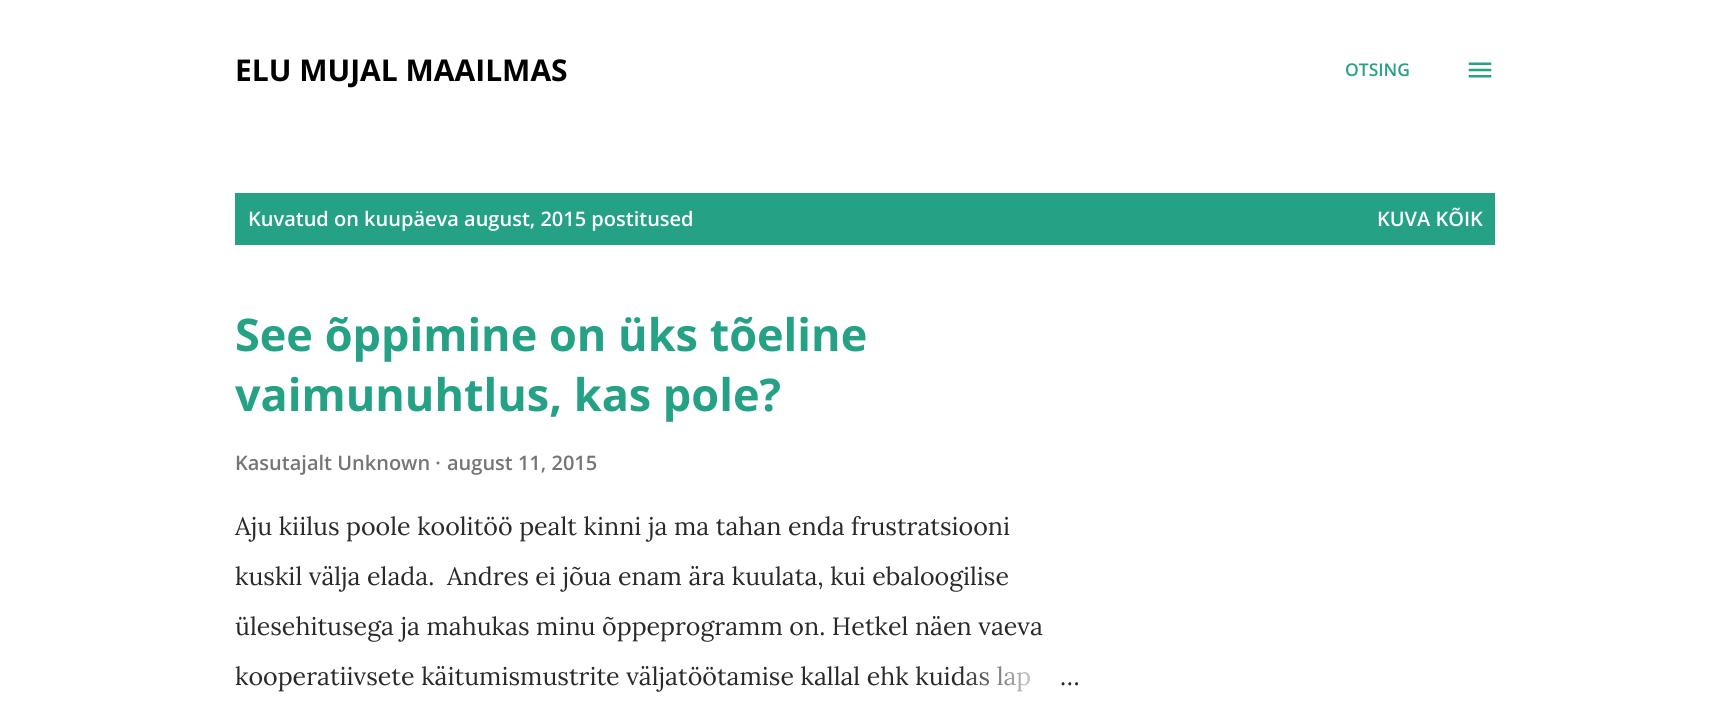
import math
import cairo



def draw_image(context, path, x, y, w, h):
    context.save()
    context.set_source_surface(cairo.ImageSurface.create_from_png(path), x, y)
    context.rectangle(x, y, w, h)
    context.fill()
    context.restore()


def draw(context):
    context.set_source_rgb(1, 1, 1)
    context.paint()
    draw_image(context, "images/1.png", 1468, 62, 24, 16)
    context.set_source_rgb(37 / 255, 161 / 255, 134 / 255)
    context.rectangle(235, 193, 1260, 52)
    context.fill()
    context.select_font_face("Open Sans", cairo.FontSlant.NORMAL, cairo.FontWeight.BOLD)
    context.set_font_size(30)
    context.set_source_rgb(0, 0, 0)
    context.move_to(235, 81)
    context.show_text("ELU MUJAL MAAILMAS")
    context.select_font_face("Open Sans SemiBold")
    context.set_font_size(17.5)
    context.set_source_rgb(37 / 255, 161 / 255, 134 / 255)
    context.move_to(1345, 76)
    context.show_text("OTSING")
    context.set_font_size(20)
    context.set_source_rgb(1, 1, 1)
    context.move_to(248, 226)
    context.show_text("Kuvatud on kuupäeva august, 2015 postitused")
    context.move_to(1377, 226)
    context.show_text("KUVA KÕIK")
    context.select_font_face("Open Sans", cairo.FontSlant.NORMAL, cairo.FontWeight.BOLD)
    context.set_font_size(45)
    context.set_source_rgb(37 / 255, 161 / 255, 134 / 255)
    context.move_to(235, 351)
    context.show_text("See õppimine on üks tõeline")
    context.move_to(235, 411)
    context.show_text("vaimunuhtlus, kas pole?")
    context.select_font_face("Open Sans SemiBold")
    context.set_font_size(20)
    context.set_source_rgb(117 / 255, 117 / 255, 117 / 255)
    context.move_to(235, 470)
    context.show_text("Kasutajalt Unknown ·")
    context.move_to(447, 470)
    context.show_text("august 11, 2015")
    context.select_font_face("Lora")
    context.set_font_size(25)
    context.set_source_rgb(41 / 255, 41 / 255, 41 / 255)
    context.move_to(235, 535)
    context.show_text("Aju kiilus poole koolitöö pealt kinni ja ma tahan enda frustratsiooni")
    context.move_to(235, 585)
    context.show_text("kuskil välja elada.")
    context.move_to(447, 585)
    context.show_text("Andres ei jõua enam ära kuulata, kui ebaloogilise")
    context.move_to(235, 635)
    context.show_text("ülesehitusega ja mahukas minu õppeprogramm on. Hetkel näen vaeva")
    context.move_to(235, 685)
    context.show_text("kooperatiivsete käitumismustrite väljatöötamise kallal ehk kuidas lap")
    gradient = cairo.LinearGradient(1080, 676, 960, 676)
    gradient.add_color_stop_rgba(0, 1, 1, 1, 1)
    gradient.add_color_stop_rgba(0.2, 1, 1, 1, 1)
    gradient.add_color_stop_rgba(1, 1, 1, 1, 0)
    context.set_source(gradient)
    context.rectangle(962, 666, 69, 26)
    context.fill()
    context.set_source_rgb(41 / 255, 41 / 255, 41 / 255)
    context.move_to(1060, 685)
    context.show_text("…")


surface = cairo.ImageSurface(cairo.Format.RGB24, 1730, 721)
context = cairo.Context(surface)
options = cairo.FontOptions()
options.set_hint_metrics(cairo.HintMetrics.OFF)
options.set_hint_style(cairo.HintStyle.NONE)
context.set_font_options(options)
context.set_miter_limit(4)
draw(context)
surface.write_to_png("out.png")
